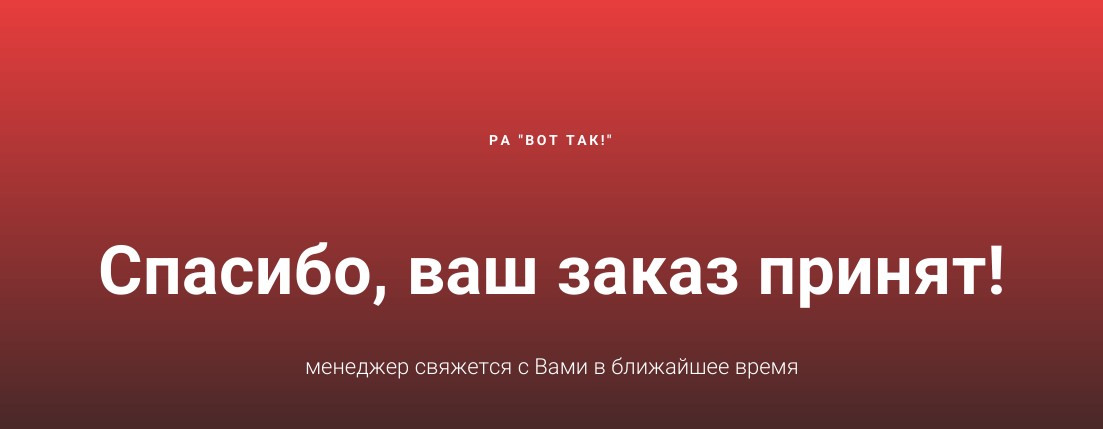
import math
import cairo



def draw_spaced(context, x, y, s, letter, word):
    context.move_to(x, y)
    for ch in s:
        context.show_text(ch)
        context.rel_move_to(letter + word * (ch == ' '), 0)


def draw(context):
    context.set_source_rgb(1, 1, 1)
    context.paint()
    gradient = cairo.LinearGradient(552, 0, 552, 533)
    gradient.add_color_stop_rgba(0, 204 / 255, 204 / 255, 204 / 255, 1)
    gradient.add_color_stop_rgba(1, 119 / 255, 119 / 255, 119 / 255, 1)
    context.set_source(gradient)
    context.rectangle(0, 0, 1103, 429)
    context.fill()
    gradient = cairo.LinearGradient(552, 0, 552, 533)
    gradient.add_color_stop_rgba(0, 244 / 255, 0, 0, 0.7)
    gradient.add_color_stop_rgba(1, 0, 0, 0, 0.7)
    context.set_source(gradient)
    context.rectangle(0, 0, 1103, 429)
    context.fill()
    context.select_font_face("Roboto", cairo.FontSlant.NORMAL, cairo.FontWeight.BOLD)
    context.set_font_size(14)
    context.set_source_rgb(1, 1, 1)
    draw_spaced(context, 489, 145, "РА \"ВОТ ТАК!\"", 2.5, 0)
    context.set_font_size(68)
    draw_spaced(context, 98, 294, "Спасибо, ваш заказ принят!", 0.5, 0)
    context.select_font_face("Roboto Light")
    context.set_font_size(22)
    context.move_to(305, 374)
    context.show_text("менеджер свяжется с Вами в ближайшее время")


surface = cairo.ImageSurface(cairo.Format.RGB24, 1103, 429)
context = cairo.Context(surface)
options = cairo.FontOptions()
options.set_hint_metrics(cairo.HintMetrics.OFF)
options.set_hint_style(cairo.HintStyle.NONE)
context.set_font_options(options)
context.set_miter_limit(4)
draw(context)
surface.write_to_png("out.png")
